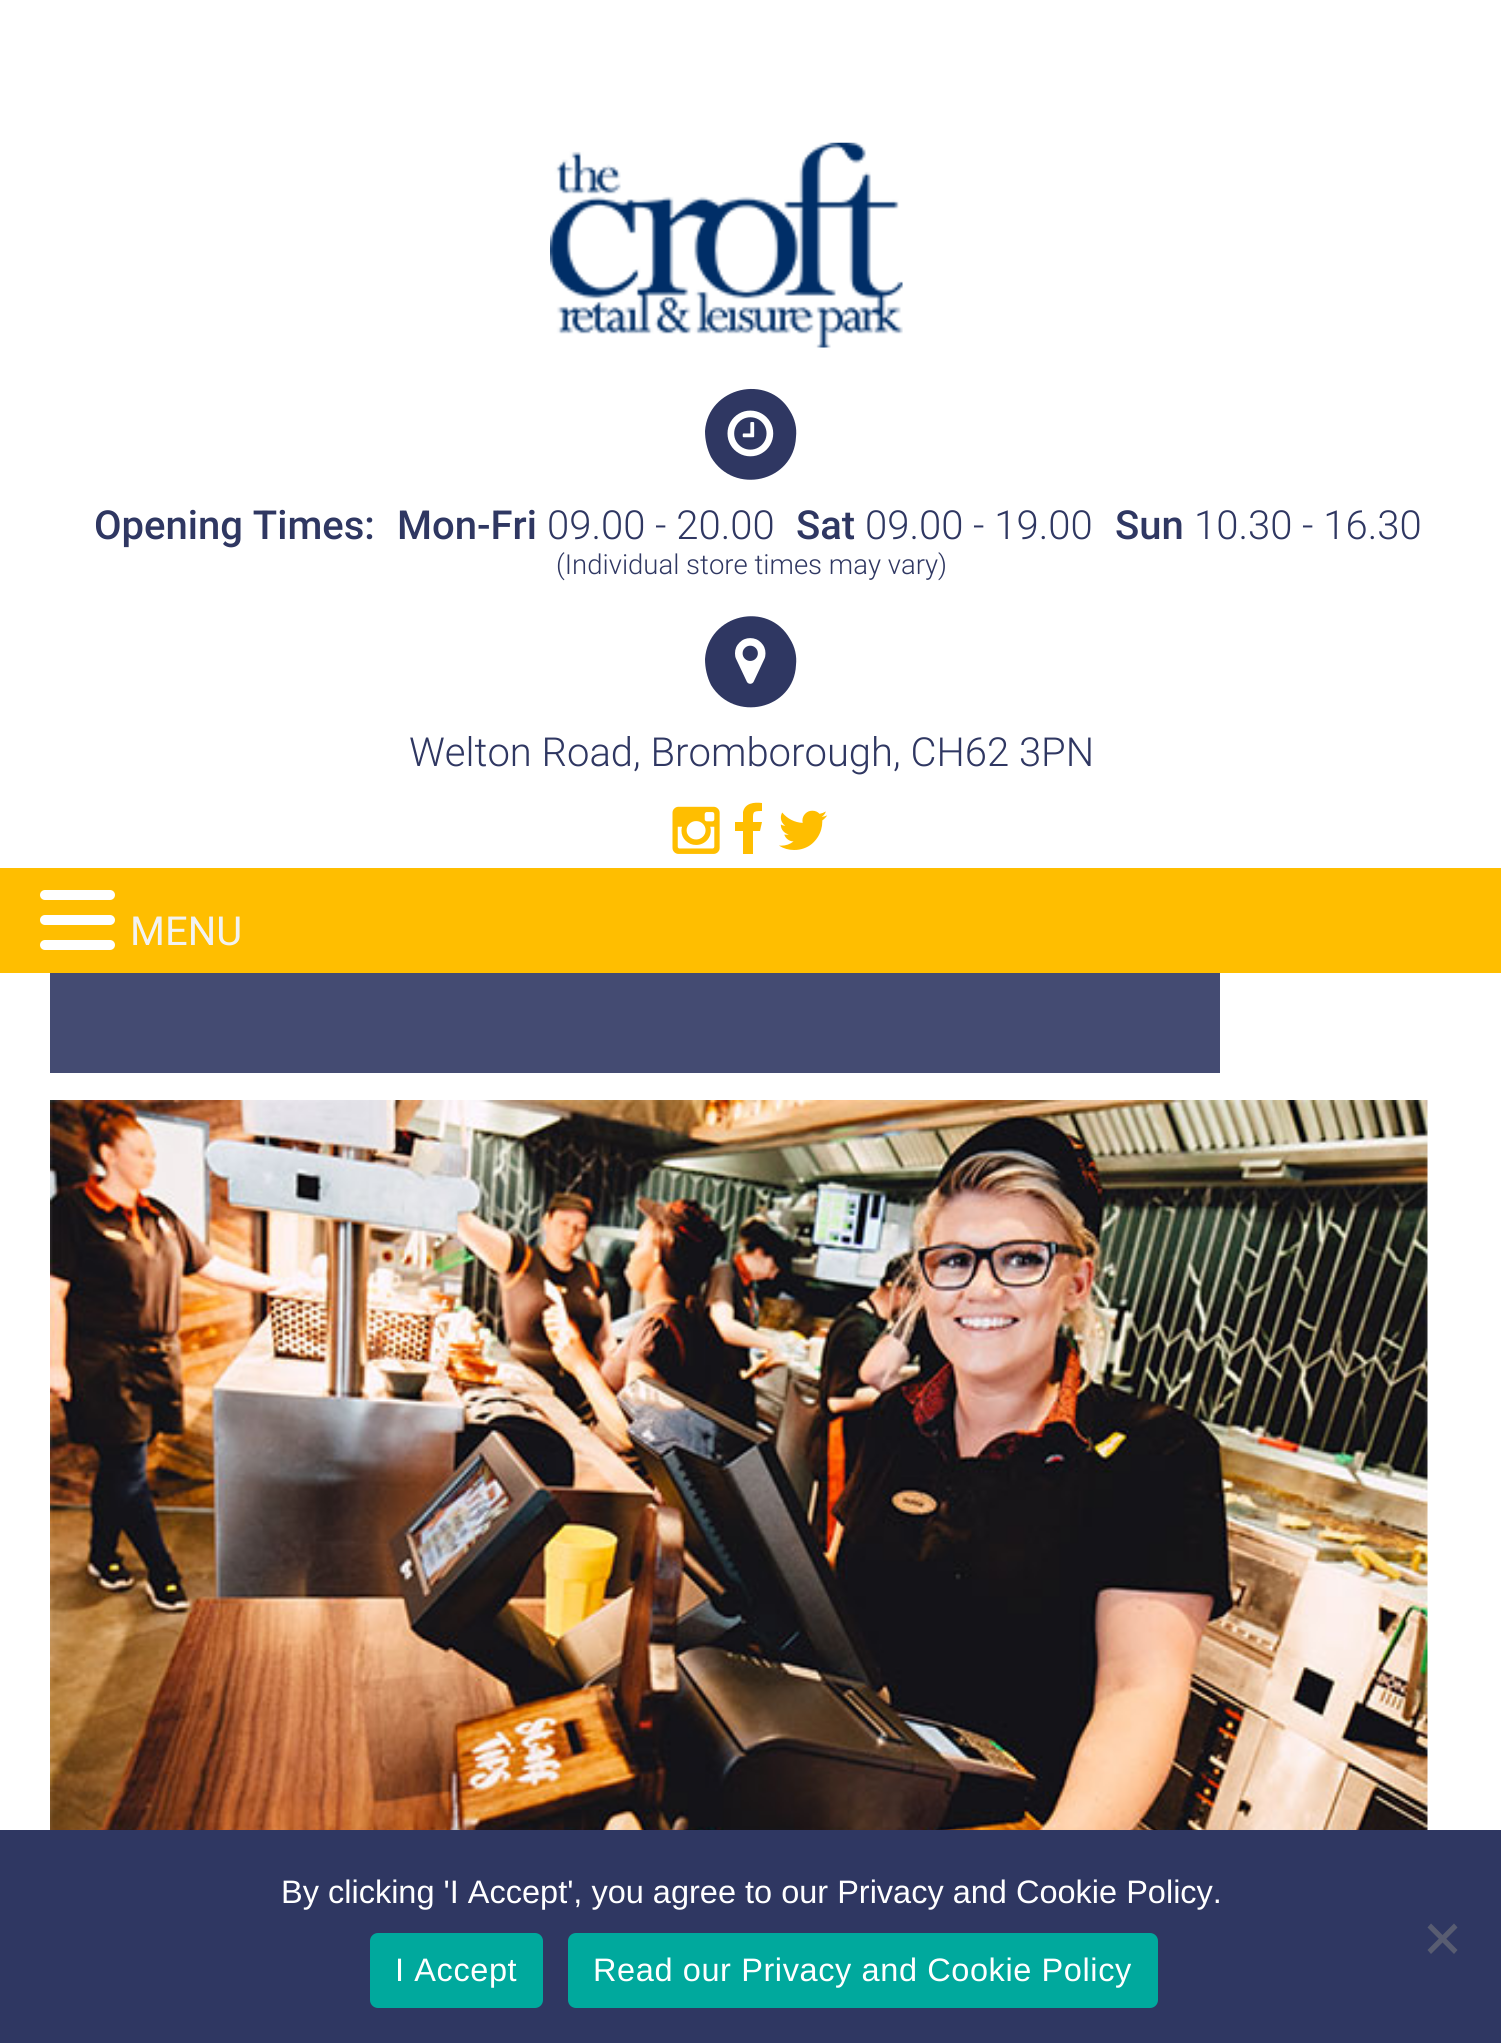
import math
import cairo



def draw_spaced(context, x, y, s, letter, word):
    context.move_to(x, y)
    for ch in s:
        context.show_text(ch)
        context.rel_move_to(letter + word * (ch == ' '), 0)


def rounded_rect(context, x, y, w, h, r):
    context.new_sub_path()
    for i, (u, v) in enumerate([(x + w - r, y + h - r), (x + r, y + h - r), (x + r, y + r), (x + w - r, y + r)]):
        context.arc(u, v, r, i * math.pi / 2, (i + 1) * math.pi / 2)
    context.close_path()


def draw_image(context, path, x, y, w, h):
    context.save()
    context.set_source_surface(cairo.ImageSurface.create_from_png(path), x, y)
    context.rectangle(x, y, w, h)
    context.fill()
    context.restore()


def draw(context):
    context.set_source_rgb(1, 1, 1)
    context.paint()
    draw_image(context, "images/1.png", 550, 142, 353, 206)
    context.set_source_rgb(47 / 255, 55 / 255, 98 / 255)
    context.new_path()
    context.move_to(790, 411)
    context.curve_to(795, 419, 797, 428, 796, 437)
    context.curve_to(794, 482, 734, 496, 711, 457)
    context.curve_to(707, 449, 705, 440, 705, 431)
    context.curve_to(708, 387, 768, 373, 790, 411)
    context.close_path()
    context.fill()
    draw_image(context, "images/2.png", 727, 410, 47, 47)
    context.new_path()
    context.move_to(790, 639)
    context.curve_to(795, 647, 797, 656, 796, 665)
    context.curve_to(794, 710, 734, 723, 711, 685)
    context.curve_to(707, 677, 705, 668, 705, 659)
    context.curve_to(708, 614, 768, 600, 790, 639)
    context.close_path()
    context.fill()
    draw_image(context, "images/3.png", 735, 638, 31, 46)
    draw_image(context, "images/4.png", 672, 806, 48, 48)
    context.set_source_rgb(1, 190 / 255, 0)
    context.new_path()
    context.move_to(762, 803)
    context.line_to(762, 811)
    context.curve_to(752, 811, 753, 812, 753, 822)
    context.line_to(762, 822)
    context.line_to(760, 831)
    context.line_to(753, 831)
    context.line_to(753, 854)
    context.line_to(743, 854)
    context.line_to(743, 831)
    context.line_to(735, 831)
    context.line_to(735, 822)
    context.line_to(743, 822)
    context.line_to(743, 812)
    context.curve_to(745, 803, 754, 802, 762, 803)
    context.close_path()
    context.fill()
    draw_image(context, "images/5.png", 779, 810, 49, 40)
    context.rectangle(0, 868, 1501, 105)
    context.fill()
    context.set_source_rgb(1, 1, 1)
    rounded_rect(context, 40, 890, 75, 10, 5)
    context.fill()
    rounded_rect(context, 40, 915, 75, 10, 5)
    context.fill()
    rounded_rect(context, 40, 940, 75, 10, 5)
    context.fill()
    context.set_source_rgb(47 / 255, 55 / 255, 98 / 255)
    context.rectangle(0, 1830, 1501, 213)
    context.fill()
    context.set_source_rgb(88 / 255, 92 / 255, 113 / 255)
    context.new_path()
    context.move_to(1454, 1923.5)
    context.line_to(1457.5, 1927.5)
    context.line_to(1431, 1954)
    context.line_to(1427.5, 1950)
    context.close_path()
    context.fill()
    context.new_path()
    context.move_to(1427.5, 1927.5)
    context.line_to(1431, 1923.5)
    context.line_to(1457.5, 1950)
    context.line_to(1454, 1954)
    context.close_path()
    context.fill()
    context.set_source_rgb(0, 169 / 255, 157 / 255)
    rounded_rect(context, 370, 1933, 173, 75, 8)
    context.fill()
    rounded_rect(context, 568, 1933, 590, 75, 8)
    context.fill()
    context.set_source_rgb(68 / 255, 75 / 255, 114 / 255)
    context.rectangle(50, 973, 1170, 100)
    context.fill()
    draw_image(context, "images/6.png", 50, 1100, 1378, 730)
    context.select_font_face("Roboto Medium")
    context.set_font_size(40)
    context.set_source_rgb(47 / 255, 55 / 255, 98 / 255)
    context.move_to(94, 539)
    context.show_text("Opening Times:")
    context.move_to(397, 539)
    context.show_text("Mon-Fri")
    context.select_font_face("Roboto Light")
    context.move_to(547, 539)
    context.show_text("09.00 - 20.00")
    context.select_font_face("Roboto Medium")
    context.move_to(796, 539)
    context.show_text("Sat")
    context.select_font_face("Roboto Light")
    context.move_to(865, 539)
    context.show_text("09.00 - 19.00")
    context.select_font_face("Roboto Medium")
    context.move_to(1115, 539)
    context.show_text("Sun")
    context.select_font_face("Roboto Light")
    context.move_to(1194, 539)
    context.show_text("10.30 - 16.30")
    context.set_font_size(27.5)
    context.move_to(556, 574)
    context.show_text("(Individual store times may vary)")
    context.set_font_size(40)
    context.move_to(409, 766)
    context.show_text("Welton Road, Bromborough, CH62 3PN")
    context.select_font_face("Roboto")
    context.set_source_rgb(242 / 255, 242 / 255, 242 / 255)
    context.move_to(130, 945)
    context.show_text("MENU")
    context.select_font_face("Liberation Sans")
    context.set_font_size(32.5)
    context.set_source_rgb(1, 1, 1)
    context.move_to(281, 1903)
    context.show_text("By clicking 'I Accept', you agree to our Privacy and Cookie Policy.")
    draw_spaced(context, 395, 1981, "I Accept", 0.6, 0)
    draw_spaced(context, 593, 1981, "Read our Privacy and Cookie Policy", 0.6, 0)


surface = cairo.ImageSurface(cairo.Format.RGB24, 1501, 2043)
context = cairo.Context(surface)
options = cairo.FontOptions()
options.set_hint_metrics(cairo.HintMetrics.OFF)
options.set_hint_style(cairo.HintStyle.NONE)
context.set_font_options(options)
context.set_miter_limit(4)
draw(context)
surface.write_to_png("out.png")
